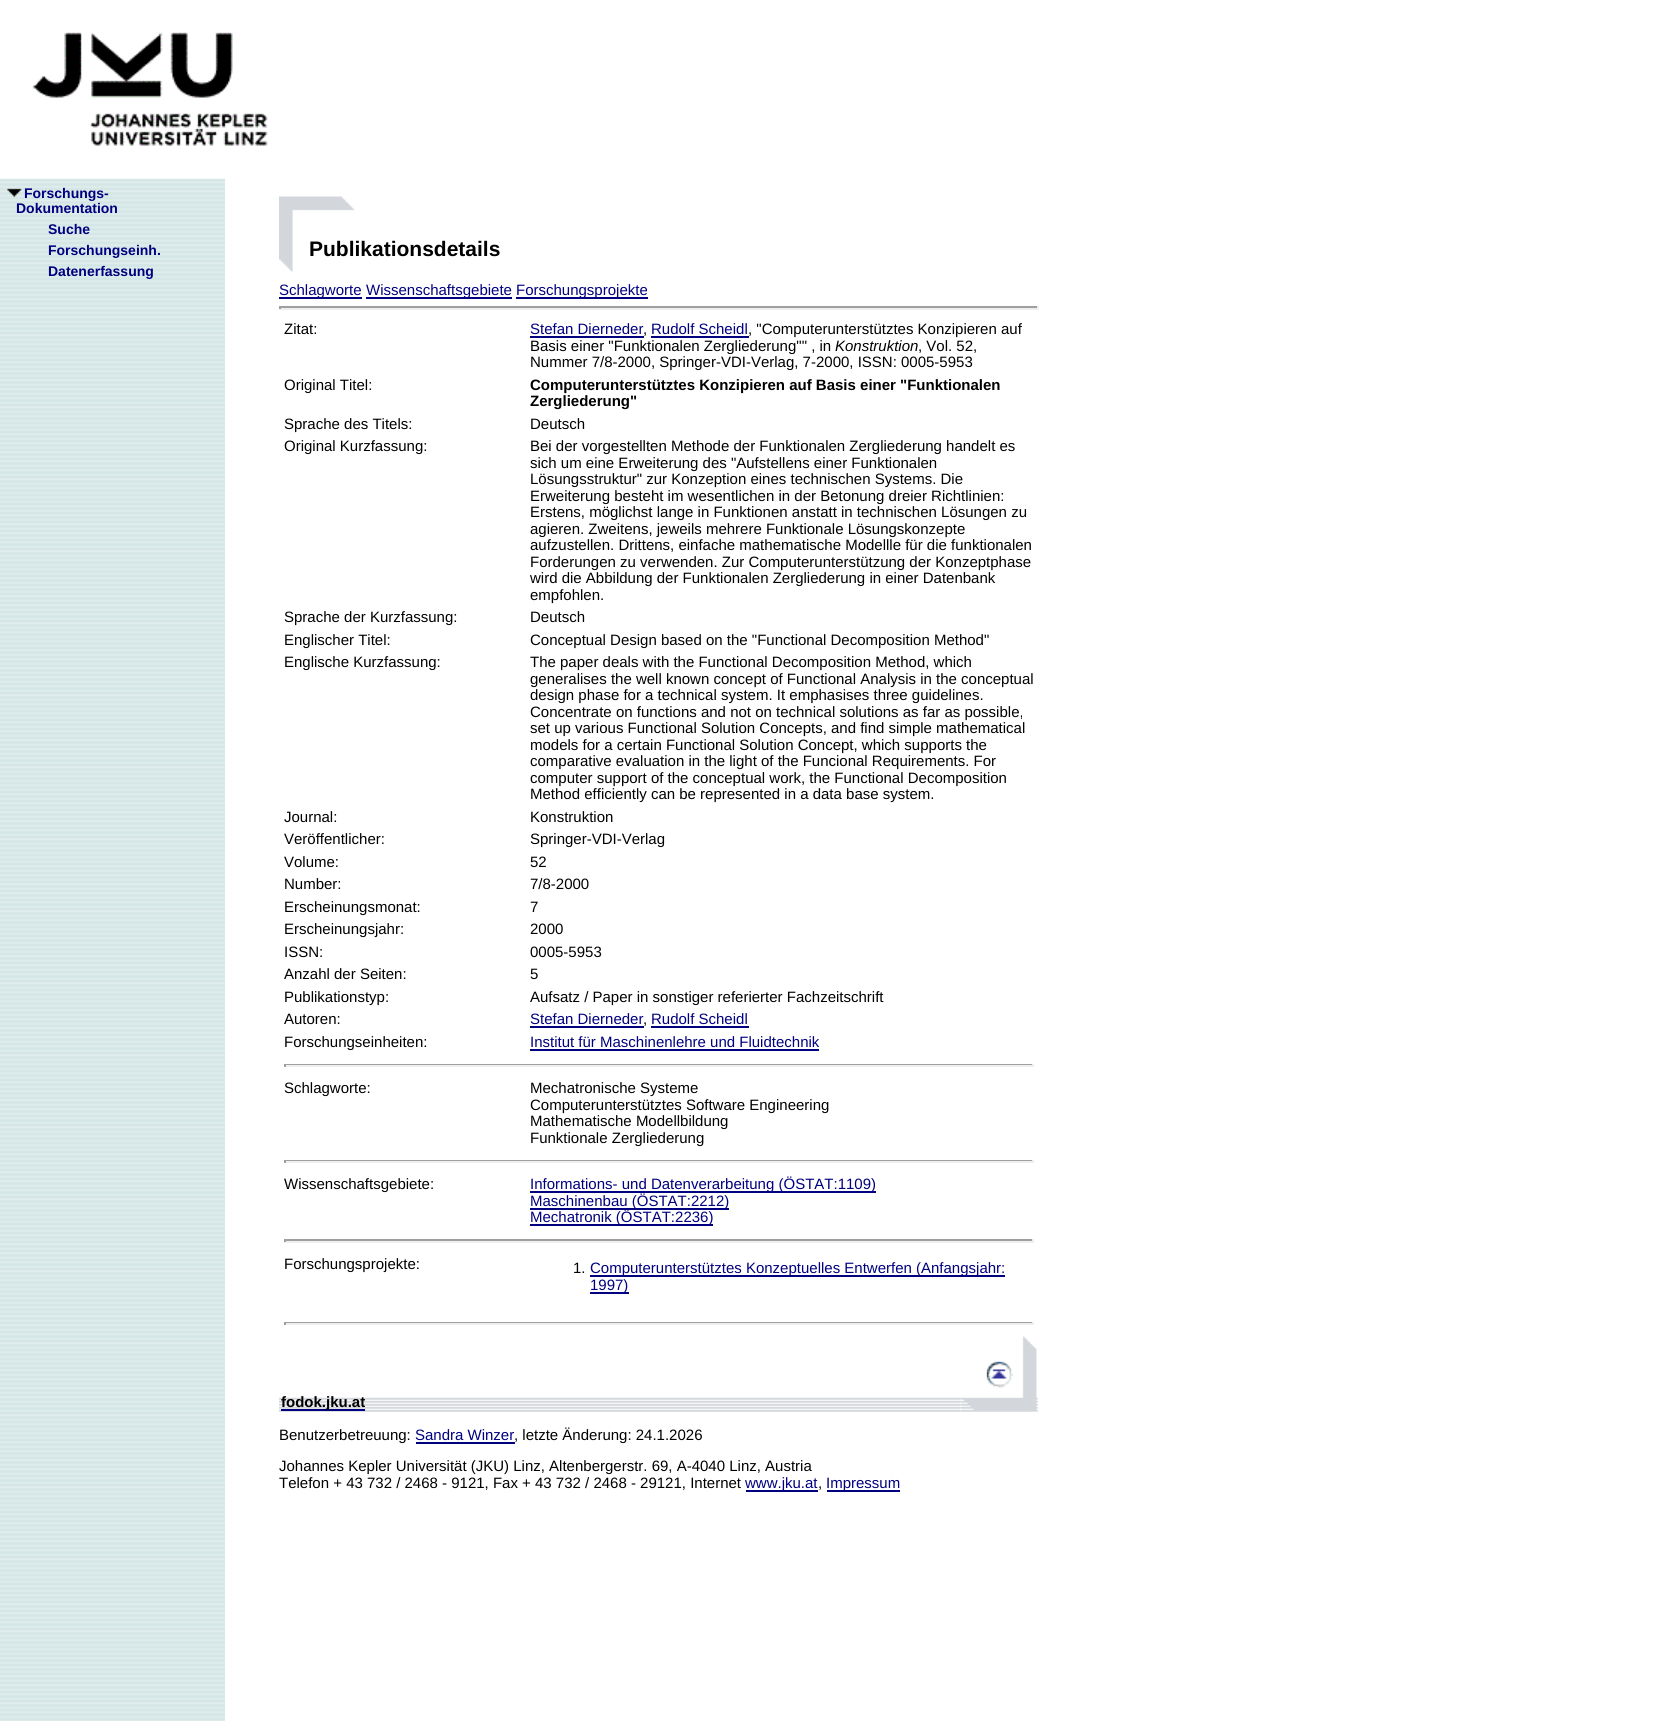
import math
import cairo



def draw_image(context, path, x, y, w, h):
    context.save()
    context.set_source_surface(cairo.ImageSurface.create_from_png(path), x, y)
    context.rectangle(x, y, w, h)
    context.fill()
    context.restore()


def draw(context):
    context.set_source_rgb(1, 1, 1)
    context.paint()
    draw_image(context, "images/2.png", 0, 178, 225, 1543)
    draw_image(context, "images/1.png", 0, 32, 268, 147)
    draw_image(context, "images/3.png", 7, 188, 15, 9)
    draw_image(context, "images/4.png", 279, 196, 75, 76)
    context.set_source_rgb(0, 0, 128 / 255)
    context.rectangle(279, 297, 83, 2)
    context.fill()
    context.rectangle(366, 297, 146, 2)
    context.fill()
    context.rectangle(516, 297, 132, 2)
    context.fill()
    context.set_source_rgb(159 / 255, 159 / 255, 159 / 255)
    context.rectangle(279, 306, 759, 2)
    context.fill()
    context.set_source_rgb(238 / 255, 238 / 255, 238 / 255)
    context.rectangle(1037, 306, 2, 3)
    context.fill()
    context.rectangle(279, 308, 759, 2)
    context.fill()
    context.set_source_rgb(159 / 255, 159 / 255, 159 / 255)
    context.rectangle(279, 306, 2, 3)
    context.fill()
    context.set_source_rgb(0, 0, 128 / 255)
    context.rectangle(530, 336, 114, 2)
    context.fill()
    context.rectangle(651, 336, 98, 2)
    context.fill()
    context.rectangle(530, 1026, 114, 2)
    context.fill()
    context.rectangle(651, 1026, 98, 2)
    context.fill()
    context.rectangle(530, 1049, 289, 2)
    context.fill()
    context.set_source_rgb(159 / 255, 159 / 255, 159 / 255)
    context.rectangle(284, 1064, 750, 1)
    context.fill()
    context.set_source_rgb(238 / 255, 238 / 255, 238 / 255)
    context.rectangle(1032, 1064, 2, 3)
    context.fill()
    context.rectangle(284, 1065, 750, 2)
    context.fill()
    context.set_source_rgb(159 / 255, 159 / 255, 159 / 255)
    context.rectangle(284, 1064, 2, 3)
    context.fill()
    context.rectangle(284, 1160, 750, 1)
    context.fill()
    context.set_source_rgb(238 / 255, 238 / 255, 238 / 255)
    context.rectangle(1032, 1160, 2, 3)
    context.fill()
    context.rectangle(284, 1161, 750, 2)
    context.fill()
    context.set_source_rgb(159 / 255, 159 / 255, 159 / 255)
    context.rectangle(284, 1160, 2, 3)
    context.fill()
    context.set_source_rgb(0, 0, 128 / 255)
    context.rectangle(530, 1191, 346, 2)
    context.fill()
    context.rectangle(530, 1208, 199, 2)
    context.fill()
    context.rectangle(530, 1224, 183, 2)
    context.fill()
    context.set_source_rgb(159 / 255, 159 / 255, 159 / 255)
    context.rectangle(284, 1239, 750, 2)
    context.fill()
    context.set_source_rgb(238 / 255, 238 / 255, 238 / 255)
    context.rectangle(1032, 1239, 2, 3)
    context.fill()
    context.rectangle(284, 1241, 750, 2)
    context.fill()
    context.set_source_rgb(159 / 255, 159 / 255, 159 / 255)
    context.rectangle(284, 1239, 2, 3)
    context.fill()
    context.set_source_rgb(0, 0, 128 / 255)
    context.rectangle(590, 1275, 415, 2)
    context.fill()
    context.rectangle(590, 1292, 39, 2)
    context.fill()
    context.set_source_rgb(159 / 255, 159 / 255, 159 / 255)
    context.rectangle(284, 1322, 750, 1)
    context.fill()
    context.set_source_rgb(238 / 255, 238 / 255, 238 / 255)
    context.rectangle(1032, 1322, 2, 3)
    context.fill()
    context.rectangle(284, 1323, 750, 2)
    context.fill()
    context.set_source_rgb(159 / 255, 159 / 255, 159 / 255)
    context.rectangle(284, 1322, 2, 3)
    context.fill()
    draw_image(context, "images/5.png", 279, 1397, 759, 15)
    draw_image(context, "images/6.png", 279, 1397, 681, 15)
    context.set_source_rgb(0, 0, 128 / 255)
    context.rectangle(281, 1409, 84, 2)
    context.fill()
    draw_image(context, "images/7.png", 961, 1336, 76, 76)
    draw_image(context, "images/8.png", 986, 1361, 27, 27)
    context.rectangle(416, 1442, 99, 2)
    context.fill()
    context.rectangle(746, 1490, 72, 2)
    context.fill()
    context.rectangle(827, 1490, 73, 2)
    context.fill()
    context.select_font_face("Liberation Sans", cairo.FontSlant.NORMAL, cairo.FontWeight.BOLD)
    context.set_font_size(14)
    context.move_to(24, 198)
    context.show_text("Forschungs-")
    context.move_to(16, 213)
    context.show_text("Dokumentation")
    context.move_to(48, 234)
    context.show_text("Suche")
    context.move_to(48, 255)
    context.show_text("Forschungseinh.")
    context.move_to(48, 276)
    context.show_text("Datenerfassung")
    context.set_font_size(21)
    context.set_source_rgb(0, 0, 0)
    context.move_to(309, 256)
    context.show_text("Publikationsdetails")
    context.select_font_face("Liberation Sans")
    context.set_font_size(15)
    context.set_source_rgb(0, 0, 128 / 255)
    context.move_to(279, 295)
    context.show_text("Schlagworte")
    context.move_to(366, 295)
    context.show_text("Wissenschaftsgebiete")
    context.move_to(516, 295)
    context.show_text("Forschungsprojekte")
    context.set_source_rgb(0, 0, 0)
    context.move_to(284, 334)
    context.show_text("Zitat:")
    context.set_source_rgb(0, 0, 128 / 255)
    context.move_to(530, 334)
    context.show_text("Stefan Dierneder")
    context.set_source_rgb(0, 0, 0)
    context.move_to(643, 334)
    context.show_text(",")
    context.set_source_rgb(0, 0, 128 / 255)
    context.move_to(651, 334)
    context.show_text("Rudolf Scheidl")
    context.set_source_rgb(0, 0, 0)
    context.move_to(748, 334)
    context.show_text(", \"Computerunterstütztes Konzipieren auf")
    context.move_to(530, 351)
    context.show_text("Basis einer \"Funktionalen Zergliederung\"\" , in")
    context.select_font_face("Liberation Sans", cairo.FontSlant.ITALIC)
    context.move_to(835, 351)
    context.show_text("Konstruktion")
    context.select_font_face("Liberation Sans")
    context.move_to(918, 351)
    context.show_text(", Vol. 52,")
    context.move_to(530, 367)
    context.show_text("Nummer 7/8-2000, Springer-VDI-Verlag, 7-2000, ISSN: 0005-5953")
    context.move_to(284, 390)
    context.show_text("Original Titel:")
    context.select_font_face("Liberation Sans", cairo.FontSlant.NORMAL, cairo.FontWeight.BOLD)
    context.move_to(530, 390)
    context.show_text("Computerunterstütztes Konzipieren auf Basis einer \"Funktionalen")
    context.move_to(530, 406)
    context.show_text("Zergliederung\"")
    context.select_font_face("Liberation Sans")
    context.move_to(284, 429)
    context.show_text("Sprache des Titels:")
    context.move_to(530, 429)
    context.show_text("Deutsch")
    context.move_to(284, 451)
    context.show_text("Original Kurzfassung:")
    context.move_to(530, 451)
    context.show_text("Bei der vorgestellten Methode der Funktionalen Zergliederung handelt es")
    context.move_to(530, 468)
    context.show_text("sich um eine Erweiterung des \"Aufstellens einer Funktionalen")
    context.move_to(530, 484)
    context.show_text("Lösungsstruktur\" zur Konzeption eines technischen Systems. Die")
    context.move_to(530, 501)
    context.show_text("Erweiterung besteht im wesentlichen in der Betonung dreier Richtlinien:")
    context.move_to(530, 517)
    context.show_text("Erstens, möglichst lange in Funktionen anstatt in technischen Lösungen zu")
    context.move_to(530, 534)
    context.show_text("agieren. Zweitens, jeweils mehrere Funktionale Lösungskonzepte")
    context.move_to(530, 550)
    context.show_text("aufzustellen. Drittens, einfache mathematische Modellle für die funktionalen")
    context.move_to(530, 567)
    context.show_text("Forderungen zu verwenden. Zur Computerunterstützung der Konzeptphase")
    context.move_to(530, 583)
    context.show_text("wird die Abbildung der Funktionalen Zergliederung in einer Datenbank")
    context.move_to(530, 600)
    context.show_text("empfohlen.")
    context.move_to(284, 622)
    context.show_text("Sprache der Kurzfassung:")
    context.move_to(530, 622)
    context.show_text("Deutsch")
    context.move_to(284, 645)
    context.show_text("Englischer Titel:")
    context.move_to(530, 645)
    context.show_text("Conceptual Design based on the \"Functional Decomposition Method\"")
    context.move_to(284, 667)
    context.show_text("Englische Kurzfassung:")
    context.move_to(530, 667)
    context.show_text("The paper deals with the Functional Decomposition Method, which")
    context.move_to(530, 684)
    context.show_text("generalises the well known concept of Functional Analysis in the conceptual")
    context.move_to(530, 700)
    context.show_text("design phase for a technical system. It emphasises three guidelines.")
    context.move_to(530, 717)
    context.show_text("Concentrate on functions and not on technical solutions as far as possible,")
    context.move_to(530, 733)
    context.show_text("set up various Functional Solution Concepts, and find simple mathematical")
    context.move_to(530, 750)
    context.show_text("models for a certain Functional Solution Concept, which supports the")
    context.move_to(530, 766)
    context.show_text("comparative evaluation in the light of the Funcional Requirements. For")
    context.move_to(530, 783)
    context.show_text("computer support of the conceptual work, the Functional Decomposition")
    context.move_to(530, 799)
    context.show_text("Method efficiently can be represented in a data base system.")
    context.move_to(284, 822)
    context.show_text("Journal:")
    context.move_to(530, 822)
    context.show_text("Konstruktion")
    context.move_to(284, 844)
    context.show_text("Veröffentlicher:")
    context.move_to(530, 844)
    context.show_text("Springer-VDI-Verlag")
    context.move_to(284, 867)
    context.show_text("Volume:")
    context.move_to(530, 867)
    context.show_text("52")
    context.move_to(284, 889)
    context.show_text("Number:")
    context.move_to(530, 889)
    context.show_text("7/8-2000")
    context.move_to(284, 912)
    context.show_text("Erscheinungsmonat:")
    context.move_to(530, 912)
    context.show_text("7")
    context.move_to(284, 934)
    context.show_text("Erscheinungsjahr:")
    context.move_to(530, 934)
    context.show_text("2000")
    context.move_to(284, 957)
    context.show_text("ISSN:")
    context.move_to(530, 957)
    context.show_text("0005-5953")
    context.move_to(284, 979)
    context.show_text("Anzahl der Seiten:")
    context.move_to(530, 979)
    context.show_text("5")
    context.move_to(284, 1002)
    context.show_text("Publikationstyp:")
    context.move_to(530, 1002)
    context.show_text("Aufsatz / Paper in sonstiger referierter Fachzeitschrift")
    context.move_to(284, 1024)
    context.show_text("Autoren:")
    context.set_source_rgb(0, 0, 128 / 255)
    context.move_to(530, 1024)
    context.show_text("Stefan Dierneder")
    context.set_source_rgb(0, 0, 0)
    context.move_to(643, 1024)
    context.show_text(",")
    context.set_source_rgb(0, 0, 128 / 255)
    context.move_to(651, 1024)
    context.show_text("Rudolf Scheidl")
    context.set_source_rgb(0, 0, 0)
    context.move_to(284, 1047)
    context.show_text("Forschungseinheiten:")
    context.set_source_rgb(0, 0, 128 / 255)
    context.move_to(530, 1047)
    context.show_text("Institut für Maschinenlehre und Fluidtechnik")
    context.set_source_rgb(0, 0, 0)
    context.move_to(284, 1093)
    context.show_text("Schlagworte:")
    context.move_to(530, 1093)
    context.show_text("Mechatronische Systeme")
    context.move_to(530, 1110)
    context.show_text("Computerunterstütztes Software Engineering")
    context.move_to(530, 1126)
    context.show_text("Mathematische Modellbildung")
    context.move_to(530, 1143)
    context.show_text("Funktionale Zergliederung")
    context.move_to(284, 1189)
    context.show_text("Wissenschaftsgebiete:")
    context.set_source_rgb(0, 0, 128 / 255)
    context.move_to(530, 1189)
    context.show_text("Informations- und Datenverarbeitung (ÖSTAT:1109)")
    context.move_to(530, 1206)
    context.show_text("Maschinenbau (ÖSTAT:2212)")
    context.move_to(530, 1222)
    context.show_text("Mechatronik (ÖSTAT:2236)")
    context.set_source_rgb(0, 0, 0)
    context.move_to(284, 1269)
    context.show_text("Forschungsprojekte:")
    context.move_to(573, 1273)
    context.show_text("1.")
    context.set_source_rgb(0, 0, 128 / 255)
    context.move_to(590, 1273)
    context.show_text("Computerunterstütztes Konzeptuelles Entwerfen (Anfangsjahr:")
    context.move_to(590, 1290)
    context.show_text("1997)")
    context.select_font_face("Liberation Sans", cairo.FontSlant.NORMAL, cairo.FontWeight.BOLD)
    context.set_source_rgb(0, 0, 0)
    context.move_to(281, 1407)
    context.show_text("fodok.jku.at")
    context.select_font_face("Liberation Sans")
    context.move_to(279, 1440)
    context.show_text("Benutzerbetreuung:")
    context.set_source_rgb(0, 0, 128 / 255)
    context.move_to(415, 1440)
    context.show_text("Sandra Winzer")
    context.set_source_rgb(0, 0, 0)
    context.move_to(514, 1440)
    context.show_text(", letzte Änderung: 24.1.2026")
    context.move_to(279, 1471)
    context.show_text("Johannes Kepler Universität (JKU) Linz, Altenbergerstr. 69, A-4040 Linz, Austria")
    context.move_to(279, 1488)
    context.show_text("Telefon + 43 732 / 2468 - 9121, Fax + 43 732 / 2468 - 29121, Internet")
    context.set_source_rgb(0, 0, 128 / 255)
    context.move_to(745, 1488)
    context.show_text("www.jku.at")
    context.set_source_rgb(0, 0, 0)
    context.move_to(818, 1488)
    context.show_text(",")
    context.set_source_rgb(0, 0, 128 / 255)
    context.move_to(826, 1488)
    context.show_text("Impressum")


surface = cairo.ImageSurface(cairo.Format.RGB24, 1679, 1721)
context = cairo.Context(surface)
options = cairo.FontOptions()
options.set_hint_metrics(cairo.HintMetrics.OFF)
options.set_hint_style(cairo.HintStyle.NONE)
context.set_font_options(options)
context.set_miter_limit(4)
draw(context)
surface.write_to_png("out.png")
